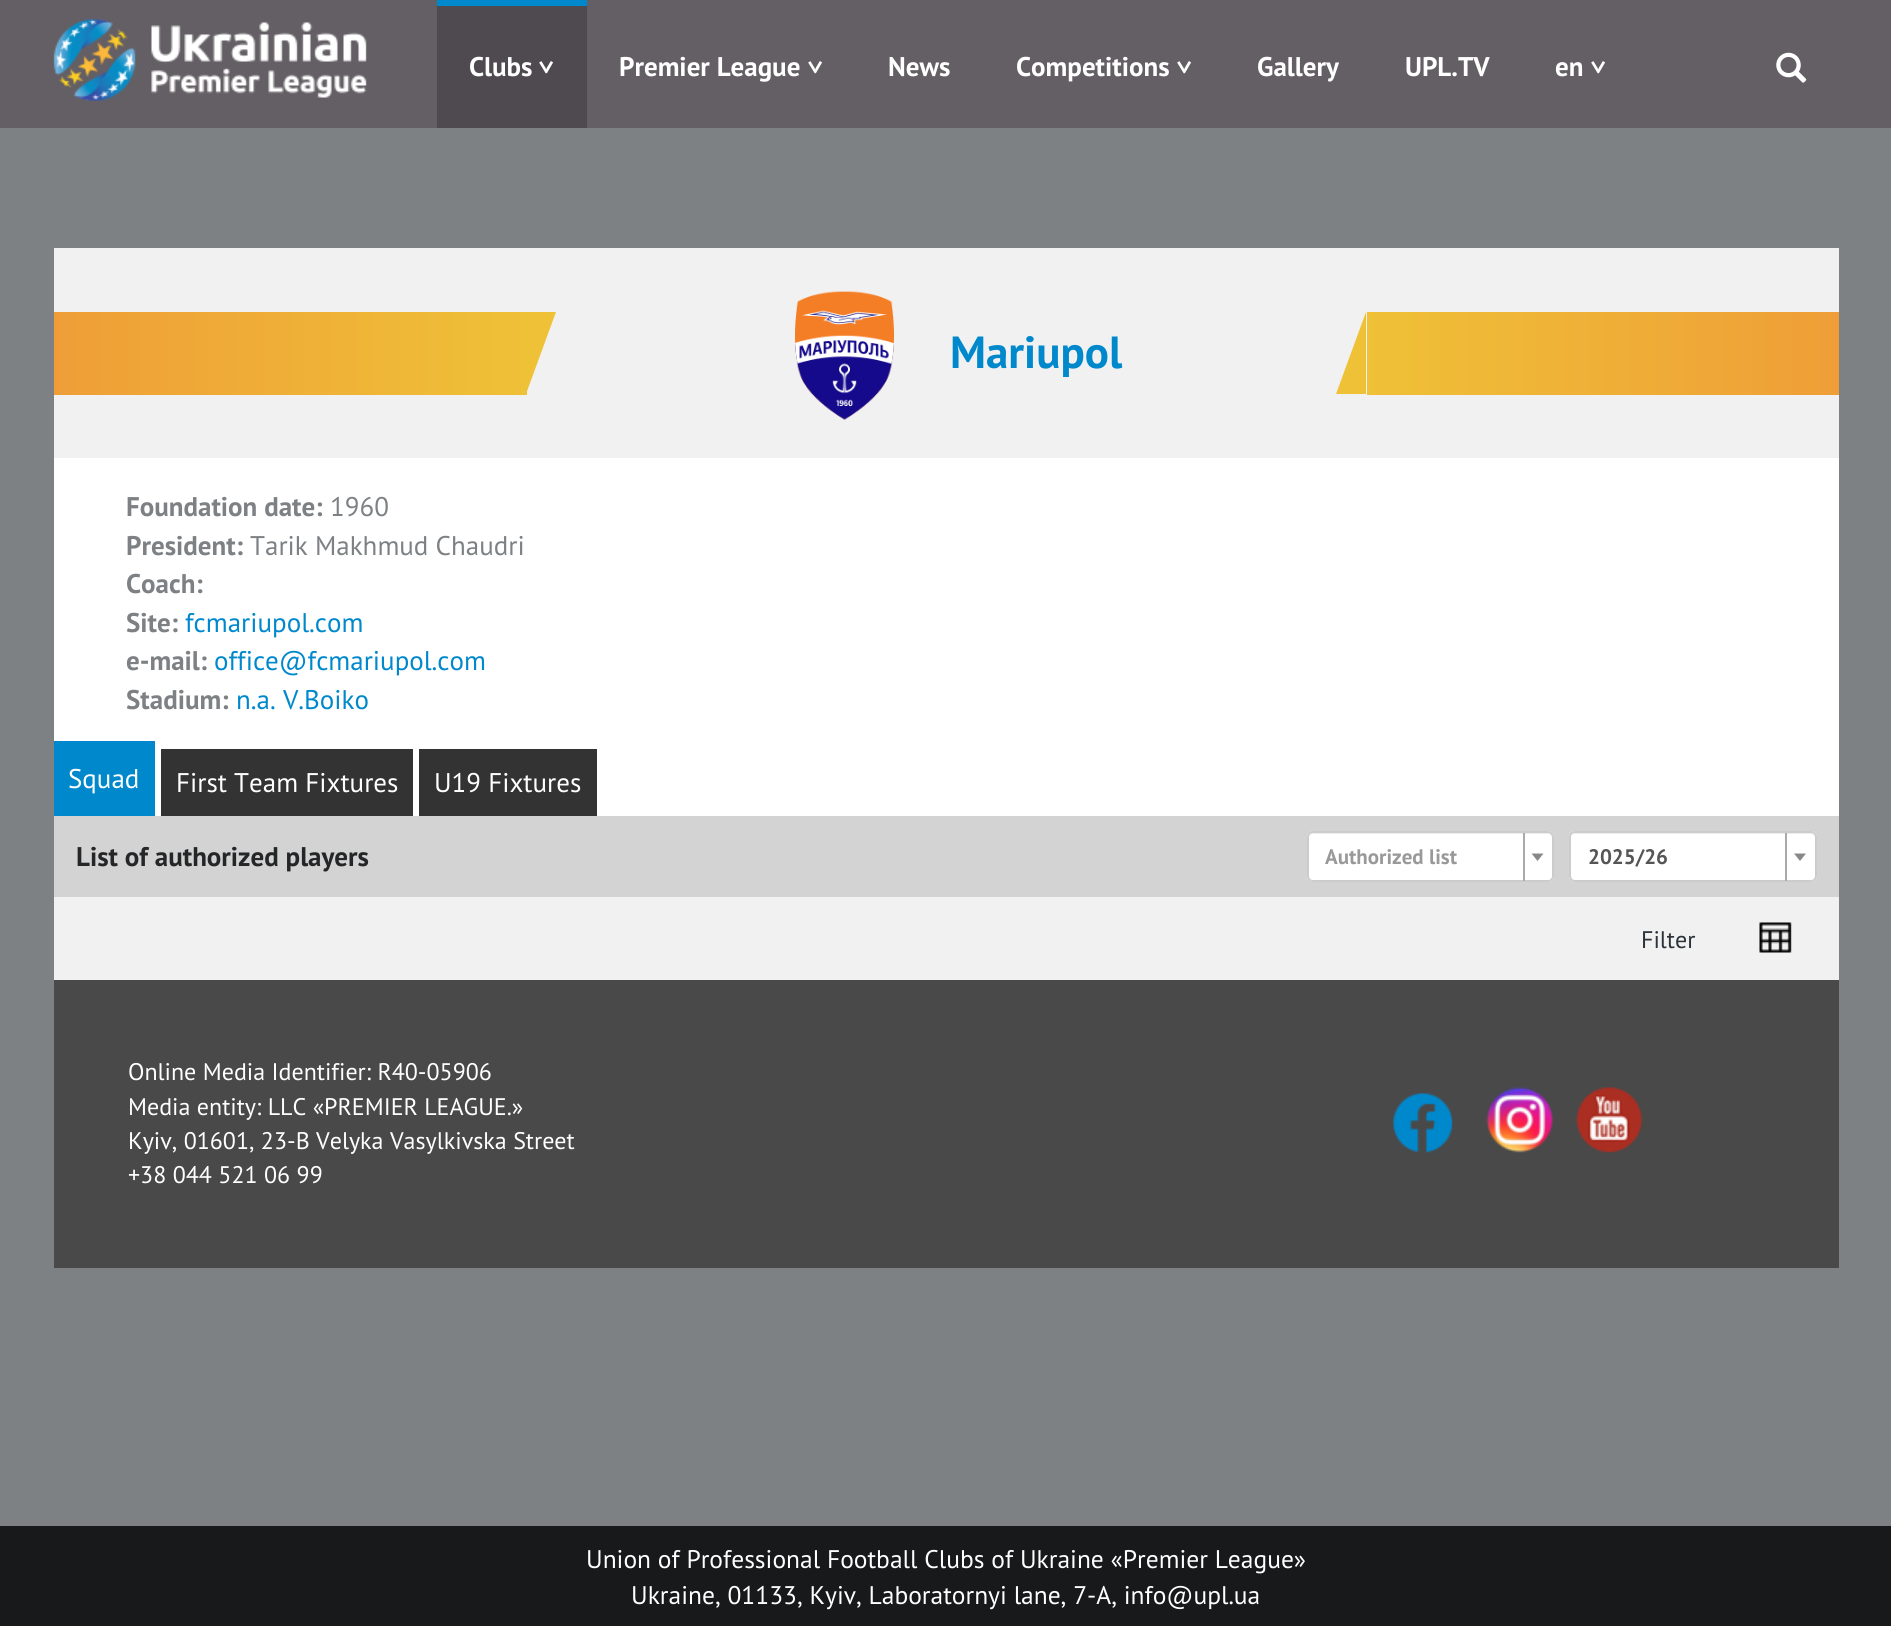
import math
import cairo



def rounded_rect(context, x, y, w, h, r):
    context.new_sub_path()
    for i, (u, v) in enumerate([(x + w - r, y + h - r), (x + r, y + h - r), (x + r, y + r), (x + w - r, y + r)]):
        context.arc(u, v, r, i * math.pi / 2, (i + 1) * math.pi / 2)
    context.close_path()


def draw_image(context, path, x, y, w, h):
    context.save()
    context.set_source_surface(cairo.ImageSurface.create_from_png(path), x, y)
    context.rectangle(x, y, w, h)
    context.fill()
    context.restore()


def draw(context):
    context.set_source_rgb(125 / 255, 129 / 255, 132 / 255)
    context.paint()
    context.set_source_rgb(100 / 255, 95 / 255, 100 / 255)
    context.rectangle(0, 0, 1891, 128)
    context.fill()
    draw_image(context, "images/1.png", 53, 19, 314, 82)
    context.set_source_rgb(79 / 255, 74 / 255, 79 / 255)
    context.rectangle(437, 6, 150, 122)
    context.fill()
    context.set_source_rgb(0, 136 / 255, 204 / 255)
    context.rectangle(437, 0, 150, 6)
    context.fill()
    draw_image(context, "images/2.png", 1776, 52, 31, 31)
    context.set_source_rgb(242 / 255, 241 / 255, 241 / 255)
    context.rectangle(54, 248, 1785, 210)
    context.fill()
    gradient = cairo.LinearGradient(527, 353, 54, 353)
    gradient.add_color_stop_rgba(0, 239 / 255, 193 / 255, 55 / 255, 1)
    gradient.add_color_stop_rgba(1, 239 / 255, 158 / 255, 55 / 255, 1)
    context.set_source(gradient)
    context.rectangle(54, 312, 473, 83)
    context.fill()
    context.set_source_rgb(239 / 255, 193 / 255, 55 / 255)
    context.new_path()
    context.move_to(526, 394)
    context.line_to(526, 312)
    context.line_to(556, 312)
    context.close_path()
    context.fill()
    draw_image(context, "images/3.png", 795, 291, 99, 129)
    gradient = cairo.LinearGradient(1839, 353, 1367, 353)
    gradient.add_color_stop_rgba(0, 239 / 255, 158 / 255, 55 / 255, 1)
    gradient.add_color_stop_rgba(1, 239 / 255, 193 / 255, 55 / 255, 1)
    context.set_source(gradient)
    context.rectangle(1367, 312, 472, 83)
    context.fill()
    context.set_source_rgb(239 / 255, 193 / 255, 55 / 255)
    context.new_path()
    context.move_to(1366, 312)
    context.line_to(1366, 394)
    context.line_to(1336, 394)
    context.close_path()
    context.fill()
    context.set_source_rgb(1, 1, 1)
    context.rectangle(54, 458, 1785, 291)
    context.fill()
    context.rectangle(155, 749, 1684, 67)
    context.fill()
    context.set_source_rgb(0, 136 / 255, 204 / 255)
    context.rectangle(54, 741, 101, 75)
    context.fill()
    context.set_source_rgb(51 / 255, 51 / 255, 51 / 255)
    context.rectangle(161, 749, 252, 67)
    context.fill()
    context.rectangle(419, 749, 178, 67)
    context.fill()
    context.set_source_rgb(211 / 255, 211 / 255, 211 / 255)
    context.rectangle(54, 816, 1785, 81)
    context.fill()
    context.set_source_rgb(1, 1, 1)
    rounded_rect(context, 1307, 831, 247, 51, 6)
    context.fill()
    context.set_source_rgb(236 / 255, 236 / 255, 236 / 255)
    context.new_path()
    context.move_to(1312, 834)
    context.line_to(1548, 834)
    context.curve_to(1550, 834, 1552, 836, 1552, 838)
    context.line_to(1552, 879)
    context.curve_to(1553, 878, 1553, 877, 1553, 876)
    context.line_to(1553, 838)
    context.curve_to(1553, 835, 1551, 833, 1548, 833)
    context.line_to(1313, 833)
    context.curve_to(1310, 833, 1308, 835, 1308, 838)
    context.curve_to(1308, 836, 1310, 834, 1312, 834)
    context.close_path()
    context.fill()
    rounded_rect(context, 1308, 832, 245, 49, 5)
    context.set_source_rgb(204 / 255, 204 / 255, 204 / 255)
    context.stroke()
    context.set_source_rgb(170 / 255, 170 / 255, 170 / 255)
    context.rectangle(1523, 833, 2, 48)
    context.fill()
    context.set_source_rgb(136 / 255, 136 / 255, 136 / 255)
    context.new_path()
    context.move_to(1531.5, 853.5)
    context.line_to(1543.5, 853.5)
    context.line_to(1537.5, 861)
    context.close_path()
    context.fill()
    context.set_source_rgb(1, 1, 1)
    rounded_rect(context, 1569, 831, 248, 51, 6)
    context.fill()
    context.set_source_rgb(236 / 255, 236 / 255, 236 / 255)
    context.new_path()
    context.move_to(1575, 834)
    context.line_to(1810, 834)
    context.curve_to(1813, 834, 1815, 836, 1815, 838)
    context.curve_to(1815, 835, 1813, 833, 1810, 833)
    context.line_to(1576, 833)
    context.curve_to(1574, 833, 1573, 834, 1572, 835)
    context.close_path()
    context.fill()
    rounded_rect(context, 1570, 832, 246, 49, 5)
    context.set_source_rgb(204 / 255, 204 / 255, 204 / 255)
    context.stroke()
    context.set_source_rgb(170 / 255, 170 / 255, 170 / 255)
    context.rectangle(1785, 833, 2, 48)
    context.fill()
    context.set_source_rgb(136 / 255, 136 / 255, 136 / 255)
    context.new_path()
    context.move_to(1794, 853.5)
    context.line_to(1806, 853.5)
    context.line_to(1800, 861)
    context.close_path()
    context.fill()
    context.set_source_rgb(242 / 255, 241 / 255, 241 / 255)
    context.rectangle(54, 897, 1785, 83)
    context.fill()
    draw_image(context, "images/4.png", 1759, 922, 33, 31)
    context.set_source_rgb(73 / 255, 73 / 255, 73 / 255)
    context.rectangle(54, 980, 1785, 288)
    context.fill()
    draw_image(context, "images/5.png", 1393, 1093, 60, 60)
    draw_image(context, "images/6.png", 1486, 1087, 67, 66)
    draw_image(context, "images/7.png", 1576, 1087, 67, 66)
    context.set_source_rgb(24 / 255, 25 / 255, 27 / 255)
    context.rectangle(0, 1526, 1891, 100)
    context.fill()
    context.select_font_face("PT Sans", cairo.FontSlant.NORMAL, cairo.FontWeight.BOLD)
    context.set_font_size(27)
    context.set_source_rgb(1, 1, 1)
    context.move_to(469, 76)
    context.show_text("Clubs")
    context.select_font_face("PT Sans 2", cairo.FontSlant.NORMAL, cairo.FontWeight.BOLD)
    context.save()
    context.translate(537, 60)
    context.rotate(90 * math.pi / 180)
    context.move_to(0, 0)
    context.show_text(">")
    context.restore()
    context.select_font_face("PT Sans", cairo.FontSlant.NORMAL, cairo.FontWeight.BOLD)
    context.move_to(619, 76)
    context.show_text("Premier League")
    context.select_font_face("PT Sans 2", cairo.FontSlant.NORMAL, cairo.FontWeight.BOLD)
    context.save()
    context.translate(806, 60)
    context.rotate(90 * math.pi / 180)
    context.move_to(0, 0)
    context.show_text(">")
    context.restore()
    context.select_font_face("PT Sans", cairo.FontSlant.NORMAL, cairo.FontWeight.BOLD)
    context.move_to(888, 76)
    context.show_text("News")
    context.move_to(1016, 76)
    context.show_text("Competitions")
    context.select_font_face("PT Sans 2", cairo.FontSlant.NORMAL, cairo.FontWeight.BOLD)
    context.save()
    context.translate(1175, 60)
    context.rotate(90 * math.pi / 180)
    context.move_to(0, 0)
    context.show_text(">")
    context.restore()
    context.select_font_face("PT Sans", cairo.FontSlant.NORMAL, cairo.FontWeight.BOLD)
    context.move_to(1257, 76)
    context.show_text("Gallery")
    context.move_to(1405, 76)
    context.show_text("UPL.TV")
    context.move_to(1555, 76)
    context.show_text("en")
    context.select_font_face("PT Sans 2", cairo.FontSlant.NORMAL, cairo.FontWeight.BOLD)
    context.save()
    context.translate(1589, 60)
    context.rotate(90 * math.pi / 180)
    context.move_to(0, 0)
    context.show_text(">")
    context.restore()
    context.select_font_face("PT Sans", cairo.FontSlant.NORMAL, cairo.FontWeight.BOLD)
    context.set_font_size(45)
    context.set_source_rgb(0, 136 / 255, 204 / 255)
    context.move_to(950, 368)
    context.show_text("Mariupol")
    context.set_font_size(27)
    context.set_source_rgb(125 / 255, 129 / 255, 132 / 255)
    context.move_to(126, 516)
    context.show_text("Foundation date:")
    context.select_font_face("PT Sans")
    context.move_to(330, 516)
    context.show_text("1960")
    context.select_font_face("PT Sans", cairo.FontSlant.NORMAL, cairo.FontWeight.BOLD)
    context.move_to(126, 555)
    context.show_text("President:")
    context.select_font_face("PT Sans")
    context.move_to(250, 555)
    context.show_text("Tarik Makhmud Chaudri")
    context.select_font_face("PT Sans", cairo.FontSlant.NORMAL, cairo.FontWeight.BOLD)
    context.move_to(126, 593)
    context.show_text("Coach:")
    context.move_to(126, 632)
    context.show_text("Site:")
    context.select_font_face("PT Sans")
    context.set_source_rgb(0, 136 / 255, 204 / 255)
    context.move_to(185, 632)
    context.show_text("fcmariupol.com")
    context.select_font_face("PT Sans", cairo.FontSlant.NORMAL, cairo.FontWeight.BOLD)
    context.set_source_rgb(125 / 255, 129 / 255, 132 / 255)
    context.move_to(126, 670)
    context.show_text("e-mail:")
    context.select_font_face("PT Sans")
    context.set_source_rgb(0, 136 / 255, 204 / 255)
    context.move_to(214, 670)
    context.show_text("office@fcmariupol.com")
    context.select_font_face("PT Sans", cairo.FontSlant.NORMAL, cairo.FontWeight.BOLD)
    context.set_source_rgb(125 / 255, 129 / 255, 132 / 255)
    context.move_to(126, 709)
    context.show_text("Stadium:")
    context.select_font_face("PT Sans")
    context.set_source_rgb(0, 136 / 255, 204 / 255)
    context.move_to(236, 709)
    context.show_text("n.a. V.Boiko")
    context.set_source_rgb(1, 1, 1)
    context.move_to(68, 788)
    context.show_text("Squad")
    context.move_to(176, 792)
    context.show_text("First Team Fixtures")
    context.move_to(434, 792)
    context.show_text("U19 Fixtures")
    context.select_font_face("PT Sans", cairo.FontSlant.NORMAL, cairo.FontWeight.BOLD)
    context.set_source_rgb(36 / 255, 38 / 255, 40 / 255)
    context.move_to(76, 866)
    context.show_text("List of authorized players")
    context.set_font_size(21)
    context.set_source_rgb(153 / 255, 153 / 255, 153 / 255)
    context.move_to(1325, 864)
    context.show_text("Authorized list")
    context.set_source_rgb(85 / 255, 85 / 255, 85 / 255)
    context.move_to(1588, 864)
    context.show_text("2025/26")
    context.select_font_face("PT Sans")
    context.set_font_size(24)
    context.set_source_rgb(43 / 255, 50 / 255, 58 / 255)
    context.move_to(1641, 948)
    context.show_text("Filter")
    context.set_source_rgb(1, 1, 1)
    context.move_to(128, 1080)
    context.show_text("Online Media Identifier: R40-05906")
    context.move_to(128, 1115)
    context.show_text("Media entity: LLC «PREMIER LEAGUE.»")
    context.move_to(128, 1149)
    context.show_text("Kyiv, 01601, 23-B Velyka Vasylkivska Street")
    context.move_to(128, 1183)
    context.show_text("+38 044 521 06 99")
    context.set_font_size(25.5)
    context.move_to(586, 1568)
    context.show_text("Union of Professional Football Clubs of Ukraine «Premier League»")
    context.move_to(631, 1604)
    context.show_text("Ukraine, 01133, Kyiv, Laboratornyi lane, 7-A, info@upl.ua")


surface = cairo.ImageSurface(cairo.Format.RGB24, 1891, 1626)
context = cairo.Context(surface)
options = cairo.FontOptions()
options.set_hint_metrics(cairo.HintMetrics.OFF)
options.set_hint_style(cairo.HintStyle.NONE)
context.set_font_options(options)
context.set_miter_limit(4)
draw(context)
surface.write_to_png("out.png")
